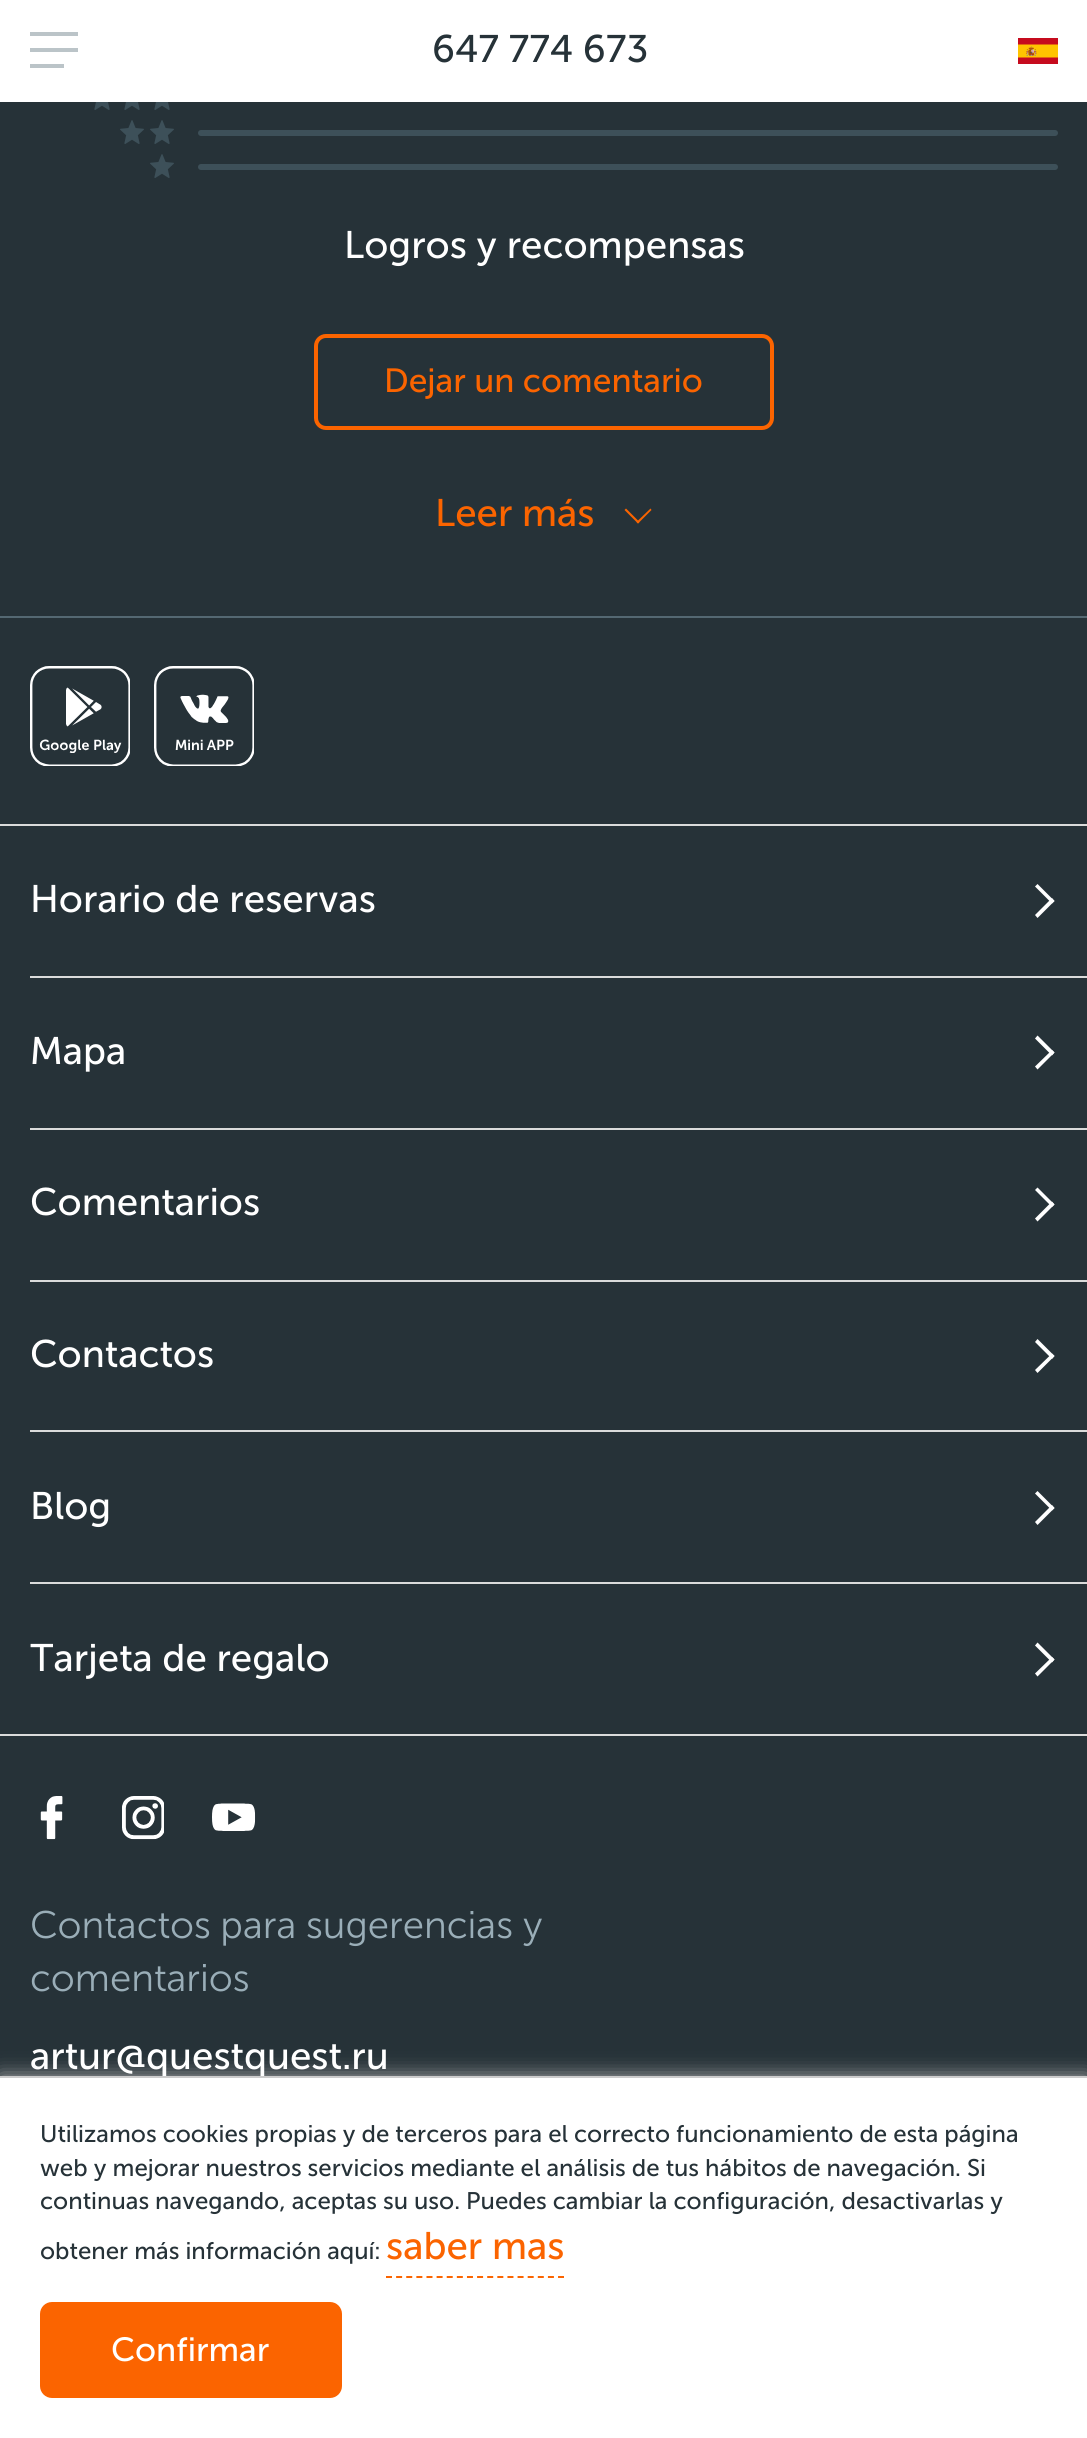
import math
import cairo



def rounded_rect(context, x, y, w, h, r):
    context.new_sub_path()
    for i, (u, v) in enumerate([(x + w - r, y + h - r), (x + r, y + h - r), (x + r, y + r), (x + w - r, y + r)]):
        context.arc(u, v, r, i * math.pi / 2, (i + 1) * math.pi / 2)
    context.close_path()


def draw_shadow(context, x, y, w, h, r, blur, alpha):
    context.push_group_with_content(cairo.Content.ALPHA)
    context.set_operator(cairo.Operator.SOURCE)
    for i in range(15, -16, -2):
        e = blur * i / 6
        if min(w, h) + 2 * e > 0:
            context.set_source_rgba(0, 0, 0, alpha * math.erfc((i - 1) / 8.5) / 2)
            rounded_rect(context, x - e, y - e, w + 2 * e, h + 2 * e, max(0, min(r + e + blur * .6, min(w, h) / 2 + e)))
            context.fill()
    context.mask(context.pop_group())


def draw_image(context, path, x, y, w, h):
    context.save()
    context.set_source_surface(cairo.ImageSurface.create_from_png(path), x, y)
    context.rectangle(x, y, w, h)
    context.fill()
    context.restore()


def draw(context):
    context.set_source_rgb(38 / 255, 50 / 255, 56 / 255)
    context.paint()
    context.set_source_rgb(1, 1, 1)
    context.rectangle(0, 0, 1087, 102)
    context.fill()
    context.set_source_rgb(187 / 255, 196 / 255, 200 / 255)
    context.rectangle(30, 48, 48, 4)
    context.fill()
    context.rectangle(30, 32, 48, 4)
    context.fill()
    context.rectangle(30, 64, 34, 4)
    context.fill()
    draw_image(context, "images/1.png", 1018, 38, 40, 26)
    draw_image(context, "images/2.png", 94, 102, 16, 8)
    draw_image(context, "images/2.png", 124, 102, 16, 8)
    draw_image(context, "images/2.png", 154, 102, 16, 8)
    draw_image(context, "images/3.png", 120, 120, 24, 24)
    draw_image(context, "images/3.png", 150, 120, 24, 24)
    context.set_source_rgb(61 / 255, 80 / 255, 89 / 255)
    rounded_rect(context, 198, 130, 860, 6, 3)
    context.fill()
    draw_image(context, "images/3.png", 150, 154, 24, 24)
    rounded_rect(context, 198, 164, 860, 6, 3)
    context.fill()
    rounded_rect(context, 316, 336, 456, 92, 10)
    context.set_source_rgb(251 / 255, 100 / 255, 0)
    context.set_line_width(4)
    context.stroke()
    context.new_path()
    context.move_to(636.5, 522)
    context.line_to(650.5, 508.5)
    context.line_to(651.5, 510)
    context.line_to(638, 523.5)
    context.close_path()
    context.fill()
    context.new_path()
    context.move_to(624.5, 510)
    context.line_to(626, 508.5)
    context.line_to(639.5, 522)
    context.line_to(638, 523.5)
    context.close_path()
    context.fill()
    context.set_source_rgb(84 / 255, 104 / 255, 114 / 255)
    context.rectangle(0, 616, 1087, 2)
    context.fill()
    draw_image(context, "images/4.png", 30, 666, 100, 100)
    draw_image(context, "images/5.png", 154, 666, 100, 100)
    context.set_source_rgb(218 / 255, 219 / 255, 219 / 255)
    context.rectangle(0, 824, 1087, 2)
    context.fill()
    context.rectangle(0, 1734, 1087, 2)
    context.fill()
    context.rectangle(30, 976, 1057, 2)
    context.fill()
    context.set_source_rgb(1, 1, 1)
    context.new_path()
    context.move_to(1037.5, 884)
    context.line_to(1054.5, 901)
    context.line_to(1052, 903.5)
    context.line_to(1035, 886.5)
    context.close_path()
    context.fill()
    context.new_path()
    context.move_to(1052, 898)
    context.line_to(1054.5, 901)
    context.line_to(1037.5, 918)
    context.line_to(1035, 915)
    context.close_path()
    context.fill()
    context.set_source_rgb(218 / 255, 219 / 255, 219 / 255)
    context.rectangle(30, 1128, 1057, 2)
    context.fill()
    context.set_source_rgb(1, 1, 1)
    context.new_path()
    context.move_to(1037.5, 1035.5)
    context.line_to(1054.5, 1052.5)
    context.line_to(1052, 1055.5)
    context.line_to(1035, 1038.5)
    context.close_path()
    context.fill()
    context.new_path()
    context.move_to(1052, 1050)
    context.line_to(1054.5, 1052.5)
    context.line_to(1037.5, 1069.5)
    context.line_to(1035, 1066.5)
    context.close_path()
    context.fill()
    context.set_source_rgb(218 / 255, 219 / 255, 219 / 255)
    context.rectangle(30, 1280, 1057, 2)
    context.fill()
    context.set_source_rgb(1, 1, 1)
    context.new_path()
    context.move_to(1037.5, 1187.5)
    context.line_to(1054.5, 1204.5)
    context.line_to(1052, 1207)
    context.line_to(1035, 1190)
    context.close_path()
    context.fill()
    context.new_path()
    context.move_to(1052, 1201.5)
    context.line_to(1054.5, 1204.5)
    context.line_to(1037.5, 1221.5)
    context.line_to(1035, 1218.5)
    context.close_path()
    context.fill()
    context.set_source_rgb(218 / 255, 219 / 255, 219 / 255)
    context.rectangle(30, 1430, 1057, 2)
    context.fill()
    context.set_source_rgb(1, 1, 1)
    context.new_path()
    context.move_to(1037.5, 1339)
    context.line_to(1054.5, 1356)
    context.line_to(1052, 1359)
    context.line_to(1035, 1342)
    context.close_path()
    context.fill()
    context.new_path()
    context.move_to(1052, 1353.5)
    context.line_to(1054.5, 1356)
    context.line_to(1037.5, 1373)
    context.line_to(1035, 1370)
    context.close_path()
    context.fill()
    context.set_source_rgb(218 / 255, 219 / 255, 219 / 255)
    context.rectangle(30, 1582, 1057, 2)
    context.fill()
    context.set_source_rgb(1, 1, 1)
    context.new_path()
    context.move_to(1037.5, 1491)
    context.line_to(1054.5, 1508)
    context.line_to(1052, 1510.5)
    context.line_to(1035, 1493.5)
    context.close_path()
    context.fill()
    context.new_path()
    context.move_to(1052, 1505)
    context.line_to(1054.5, 1508)
    context.line_to(1037.5, 1525)
    context.line_to(1035, 1522)
    context.close_path()
    context.fill()
    context.new_path()
    context.move_to(1037.5, 1642.5)
    context.line_to(1054.5, 1659.5)
    context.line_to(1052, 1662.5)
    context.line_to(1035, 1645.5)
    context.close_path()
    context.fill()
    context.new_path()
    context.move_to(1052, 1657)
    context.line_to(1054.5, 1659.5)
    context.line_to(1037.5, 1676.5)
    context.line_to(1035, 1673.5)
    context.close_path()
    context.fill()
    draw_image(context, "images/6.png", 40, 1796, 23, 44)
    draw_image(context, "images/7.png", 122, 1796, 42, 44)
    draw_image(context, "images/8.png", 212, 1803, 44, 28)
    context.set_source_rgb(170 / 255, 170 / 255, 170 / 255)
    draw_shadow(context, 0, 2076, 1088, 362, 0, 10, 1)
    context.set_source_rgb(1, 1, 1)
    context.rectangle(0, 2078, 1087, 360)
    context.fill()
    context.new_path()
    context.move_to(386, 2277)
    context.line_to(564, 2277)
    context.set_source_rgb(251 / 255, 100 / 255, 0)
    context.set_line_width(2)
    context.set_dash([6, 4.12])
    context.stroke()
    rounded_rect(context, 42, 2304, 298, 92, 10)
    context.fill_preserve()
    context.set_line_width(4)
    context.set_dash([])
    context.stroke()
    context.select_font_face("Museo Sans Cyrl")
    context.set_font_size(38.4)
    context.set_source_rgb(38 / 255, 50 / 255, 56 / 255)
    context.move_to(432, 62)
    context.show_text("647 774 673")
    context.set_source_rgb(1, 1, 1)
    context.move_to(344, 258)
    context.show_text("Logros y recompensas")
    context.set_font_size(33.5)
    context.set_source_rgb(251 / 255, 100 / 255, 0)
    context.move_to(384, 392)
    context.show_text("Dejar un comentario")
    context.set_font_size(38.4)
    context.move_to(435, 526)
    context.show_text("Leer más")
    context.set_source_rgb(1, 1, 1)
    context.move_to(30, 912)
    context.show_text("Horario de reservas")
    context.move_to(30, 1064)
    context.show_text("Mapa")
    context.move_to(30, 1215)
    context.show_text("Comentarios")
    context.move_to(30, 1367)
    context.show_text("Contactos")
    context.move_to(30, 1519)
    context.show_text("Blog")
    context.move_to(30, 1671)
    context.show_text("Tarjeta de regalo")
    context.select_font_face("Museo Sans Cyrl Light")
    context.set_source_rgb(154 / 255, 174 / 255, 184 / 255)
    context.move_to(30, 1938)
    context.show_text("Contactos para sugerencias y")
    context.move_to(30, 1991)
    context.show_text("comentarios")
    context.select_font_face("Museo Sans Cyrl")
    context.set_source_rgb(1, 1, 1)
    context.move_to(30, 2069)
    context.show_text("artur@questquest.ru")
    context.set_source_rgb(204 / 255, 204 / 255, 204 / 255)
    context.rectangle(0, 2076, 1087, 2)
    context.fill()
    context.set_font_size(24)
    context.set_source_rgb(38 / 255, 50 / 255, 56 / 255)
    context.move_to(40, 2142)
    context.show_text("Utilizamos cookies propias y de terceros para el correcto funcionamiento de esta página")
    context.move_to(40, 2176)
    context.show_text("web y mejorar nuestros servicios mediante el análisis de tus hábitos de navegación. Si")
    context.move_to(40, 2209)
    context.show_text("continuas navegando, aceptas su uso. Puedes cambiar la configuración, desactivarlas y")
    context.move_to(40, 2259)
    context.show_text("obtener más información aquí:")
    context.set_font_size(38.4)
    context.set_source_rgb(251 / 255, 100 / 255, 0)
    context.move_to(386, 2259)
    context.show_text("saber mas")
    context.set_font_size(33.5)
    context.set_source_rgb(1, 1, 1)
    context.move_to(111, 2361)
    context.show_text("Confirmar")


surface = cairo.ImageSurface(cairo.Format.RGB24, 1087, 2438)
context = cairo.Context(surface)
options = cairo.FontOptions()
options.set_hint_metrics(cairo.HintMetrics.OFF)
options.set_hint_style(cairo.HintStyle.NONE)
context.set_font_options(options)
context.set_miter_limit(4)
draw(context)
surface.write_to_png("out.png")
